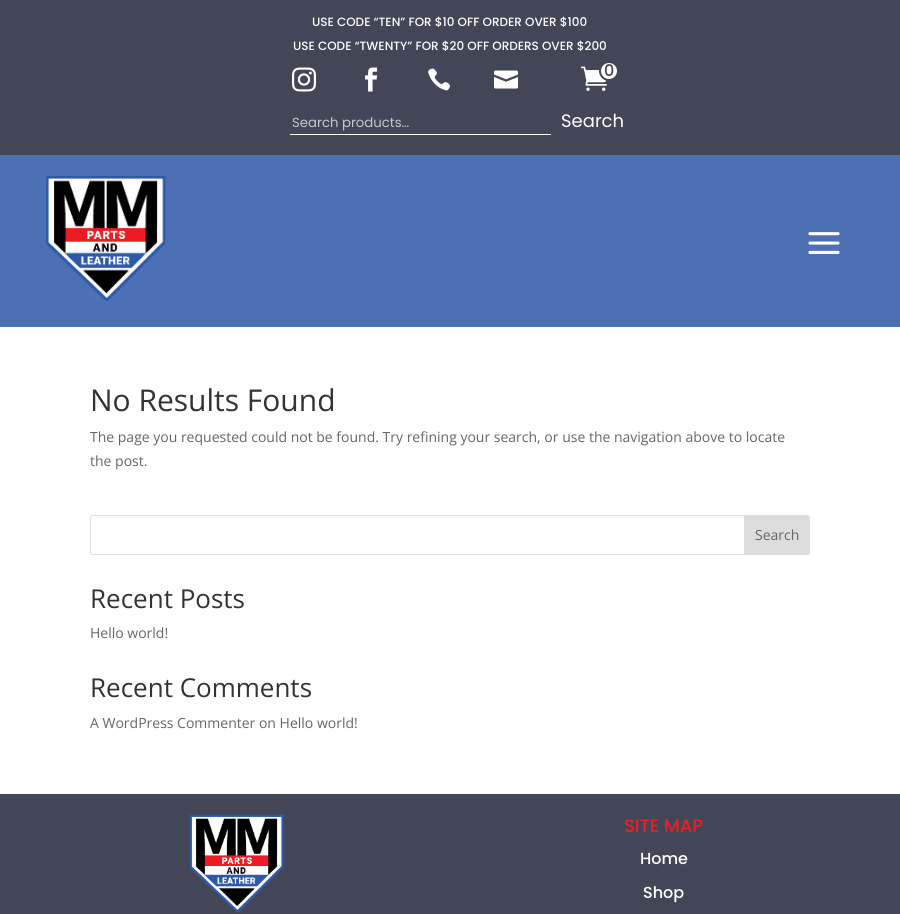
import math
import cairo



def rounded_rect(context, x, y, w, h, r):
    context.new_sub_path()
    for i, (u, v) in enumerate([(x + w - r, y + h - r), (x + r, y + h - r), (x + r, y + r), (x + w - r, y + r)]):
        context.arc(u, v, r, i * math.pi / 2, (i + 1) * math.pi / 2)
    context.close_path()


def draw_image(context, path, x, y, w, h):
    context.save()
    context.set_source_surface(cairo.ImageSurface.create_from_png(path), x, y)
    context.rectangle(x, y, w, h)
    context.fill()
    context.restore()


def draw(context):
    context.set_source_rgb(1, 1, 1)
    context.paint()
    context.set_source_rgb(66 / 255, 70 / 255, 86 / 255)
    context.rectangle(0, 0, 900, 155)
    context.fill()
    draw_image(context, "images/1.png", 292, 67, 24, 25)
    draw_image(context, "images/2.png", 365, 67, 13, 25)
    draw_image(context, "images/3.png", 428, 68, 22, 23)
    draw_image(context, "images/4.png", 494, 70, 24, 19)
    draw_image(context, "images/5.png", 581, 66, 26, 25)
    context.set_source_rgb(1, 1, 1)
    context.arc(609, 71, 9, 0, 2 * math.pi)
    context.fill_preserve()
    context.set_source_rgb(66 / 255, 70 / 255, 86 / 255)
    context.stroke()
    context.set_source_rgb(1, 1, 1)
    context.rectangle(290, 134, 261, 1)
    context.fill()
    context.set_source_rgb(76 / 255, 112 / 255, 179 / 255)
    context.rectangle(0, 155, 900, 172)
    context.fill()
    draw_image(context, "images/6.png", 46, 176, 120, 125)
    draw_image(context, "images/7.png", 808, 232, 32, 22)
    rounded_rect(context, 90.5, 515.5, 719, 39, 2.5)
    context.set_source_rgb(221 / 255, 221 / 255, 221 / 255)
    context.set_line_width(1)
    context.stroke()
    context.new_path()
    context.move_to(744.5, 515.5)
    context.line_to(807, 515.5)
    context.curve_to(808.5, 515.5, 809.5, 516.5, 809.5, 518)
    context.line_to(809.5, 552)
    context.curve_to(809.5, 553.5, 808.5, 554.5, 807, 554.5)
    context.line_to(744.5, 554.5)
    context.close_path()
    context.fill_preserve()
    context.stroke()
    context.set_source_rgb(66 / 255, 70 / 255, 86 / 255)
    context.rectangle(0, 794, 900, 120)
    context.fill()
    draw_image(context, "images/8.png", 189, 814, 95, 99)
    context.select_font_face("Poppins Medium")
    context.set_font_size(12)
    context.set_source_rgb(1, 1, 1)
    context.move_to(312, 26)
    context.show_text("USE CODE “TEN” FOR $10 OFF ORDER OVER $100")
    context.move_to(293, 50)
    context.show_text("USE CODE “TWENTY” FOR $20 OFF ORDERS OVER $200")
    context.set_font_size(16)
    context.set_source_rgb(66 / 255, 70 / 255, 86 / 255)
    context.move_to(604, 76)
    context.show_text("0")
    context.select_font_face("Poppins")
    context.set_font_size(13.25)
    context.set_source_rgb(198 / 255, 200 / 255, 204 / 255)
    context.move_to(292, 127)
    context.show_text("Search products…")
    context.set_font_size(18)
    context.set_source_rgb(1, 1, 1)
    context.move_to(561, 127)
    context.show_text("Search")
    context.select_font_face("Open Sans")
    context.set_font_size(30)
    context.set_source_rgb(51 / 255, 51 / 255, 51 / 255)
    context.move_to(90, 411)
    context.show_text("No Results Found")
    context.set_font_size(14)
    context.set_source_rgb(102 / 255, 102 / 255, 102 / 255)
    context.move_to(90, 442)
    context.show_text("The page you requested could not be found. Try refining your search, or use the navigation above to locate")
    context.move_to(90, 466)
    context.show_text("the post.")
    context.move_to(755, 540)
    context.show_text("Search")
    context.set_font_size(26)
    context.set_source_rgb(51 / 255, 51 / 255, 51 / 255)
    context.move_to(90, 608)
    context.show_text("Recent Posts")
    context.set_font_size(14)
    context.set_source_rgb(102 / 255, 102 / 255, 102 / 255)
    context.move_to(90, 638)
    context.show_text("Hello world!")
    context.set_font_size(26)
    context.set_source_rgb(51 / 255, 51 / 255, 51 / 255)
    context.move_to(90, 697)
    context.show_text("Recent Comments")
    context.set_font_size(14)
    context.set_source_rgb(102 / 255, 102 / 255, 102 / 255)
    context.move_to(90, 728)
    context.show_text("A WordPress Commenter on Hello world!")
    context.select_font_face("Poppins Medium")
    context.set_font_size(18)
    context.set_source_rgb(237 / 255, 30 / 255, 38 / 255)
    context.move_to(624, 832)
    context.show_text("SITE MAP")
    context.set_font_size(16)
    context.set_source_rgb(1, 1, 1)
    context.move_to(640, 864)
    context.show_text("Home")
    context.move_to(643, 898)
    context.show_text("Shop")


surface = cairo.ImageSurface(cairo.Format.RGB24, 900, 914)
context = cairo.Context(surface)
options = cairo.FontOptions()
options.set_hint_metrics(cairo.HintMetrics.OFF)
options.set_hint_style(cairo.HintStyle.NONE)
context.set_font_options(options)
context.set_miter_limit(4)
draw(context)
surface.write_to_png("out.png")
